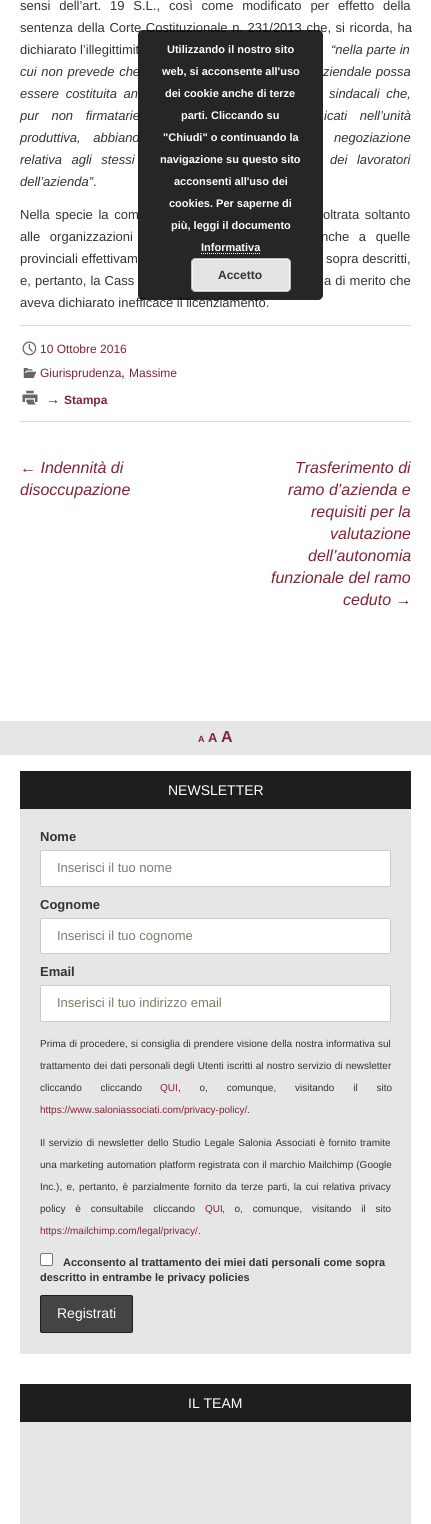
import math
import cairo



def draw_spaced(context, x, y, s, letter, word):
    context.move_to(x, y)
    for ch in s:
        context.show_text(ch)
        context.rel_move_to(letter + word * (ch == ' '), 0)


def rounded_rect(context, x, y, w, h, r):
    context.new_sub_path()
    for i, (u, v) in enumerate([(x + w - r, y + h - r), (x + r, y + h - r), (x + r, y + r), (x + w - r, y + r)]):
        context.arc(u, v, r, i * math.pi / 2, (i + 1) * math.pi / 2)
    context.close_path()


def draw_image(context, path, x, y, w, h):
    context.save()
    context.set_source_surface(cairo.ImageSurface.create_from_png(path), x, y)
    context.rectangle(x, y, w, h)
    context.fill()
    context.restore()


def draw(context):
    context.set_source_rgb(1, 1, 1)
    context.paint()
    context.set_source_rgb(221 / 255, 221 / 255, 221 / 255)
    context.rectangle(20, 325, 391, 1)
    context.fill()
    context.rectangle(20, 421, 391, 1)
    context.fill()
    draw_image(context, "images/1.png", 22, 341, 15, 15)
    draw_image(context, "images/2.png", 23, 368, 14, 10)
    draw_image(context, "images/3.png", 22, 390, 16, 15)
    context.set_source_rgb(230 / 255, 230 / 255, 230 / 255)
    context.rectangle(0, 721, 431, 34)
    context.fill()
    context.rectangle(20, 809, 391, 545)
    context.fill()
    context.set_source_rgb(30 / 255, 30 / 255, 30 / 255)
    context.rectangle(20, 771, 391, 38)
    context.fill()
    context.set_source_rgb(1, 1, 1)
    rounded_rect(context, 40.5, 850.5, 350, 36, 1.5)
    context.fill_preserve()
    context.set_source_rgb(204 / 255, 204 / 255, 204 / 255)
    context.set_line_width(1)
    context.stroke()
    context.set_source_rgb(1, 1, 1)
    rounded_rect(context, 40.5, 918.5, 350, 35, 1.5)
    context.fill_preserve()
    context.set_source_rgb(204 / 255, 204 / 255, 204 / 255)
    context.stroke()
    context.set_source_rgb(1, 1, 1)
    rounded_rect(context, 40.5, 985.5, 350, 36, 1.5)
    context.fill_preserve()
    context.set_source_rgb(204 / 255, 204 / 255, 204 / 255)
    context.stroke()
    context.set_source_rgb(1, 1, 1)
    rounded_rect(context, 40.5, 1253.5, 12, 12, 1.5)
    context.fill_preserve()
    context.set_source_rgb(118 / 255, 118 / 255, 118 / 255)
    context.stroke()
    context.set_source_rgb(68 / 255, 68 / 255, 68 / 255)
    rounded_rect(context, 40.5, 1295.5, 92, 37, 1.5)
    context.fill_preserve()
    context.set_source_rgb(30 / 255, 30 / 255, 30 / 255)
    context.stroke()
    context.set_source_rgb(230 / 255, 230 / 255, 230 / 255)
    context.rectangle(20, 1422, 391, 102)
    context.fill()
    context.set_source_rgb(30 / 255, 30 / 255, 30 / 255)
    context.rectangle(20, 1384, 391, 38)
    context.fill()
    context.select_font_face("Liberation Sans")
    context.set_font_size(13)
    context.set_source_rgb(51 / 255, 51 / 255, 51 / 255)
    draw_spaced(context, 20, 10, "sensi dell’art. 19 S.L., così come modificato per effetto della", 0, 5.25)
    draw_spaced(context, 20, 32, "sentenza della Corte Costituzionale n. 231/2013 che, si ricorda, ha", 0, 1)
    context.move_to(20, 54)
    context.show_text("dichiarato l’illegittimit")
    context.select_font_face("Liberation Sans", cairo.FontSlant.ITALIC)
    context.move_to(331, 54)
    context.show_text("“nella parte in")
    draw_spaced(context, 20, 76, "cui non prevede che", 0, 1)
    draw_spaced(context, 323, 76, "ziendale possa", 0, 1)
    draw_spaced(context, 20, 98, "essere costituita an", 0, 3)
    draw_spaced(context, 329, 98, "sindacali che,", 0, 3)
    draw_spaced(context, 20, 120, "pur non firmatarie", 0, 9)
    draw_spaced(context, 324, 120, "icati nell’unità", 0, 9)
    draw_spaced(context, 20, 142, "produttiva, abbiano", 0, 9)
    draw_spaced(context, 334, 142, "negoziazione", 0, 9)
    draw_spaced(context, 20, 164, "relativa agli stessi", 0, 6)
    draw_spaced(context, 330, 164, "dei lavoratori", 0, 6)
    context.move_to(20, 186)
    context.show_text("dell’azienda”")
    context.select_font_face("Liberation Sans")
    context.move_to(93, 186)
    context.show_text(".")
    draw_spaced(context, 20, 219, "Nella specie la com", 0, 2)
    draw_spaced(context, 323, 219, "oltrata soltanto", 0, 2)
    draw_spaced(context, 20, 241, "alle organizzazioni", 0, 6)
    draw_spaced(context, 321, 241, "nche a quelle", 0, 6)
    context.move_to(20, 263)
    context.show_text("provinciali effettivam")
    context.move_to(326, 263)
    context.show_text("sopra descritti,")
    draw_spaced(context, 20, 285, "e, pertanto, la Cass", 0, 0.5)
    draw_spaced(context, 324, 285, "a di merito che", 0, 0.5)
    context.move_to(20, 307)
    context.show_text("aveva dichiarato inefficace il licenziamento.")
    context.set_font_size(12)
    context.set_source_rgb(130 / 255, 36 / 255, 51 / 255)
    context.move_to(40, 353)
    context.show_text("10 Ottobre 2016")
    context.move_to(40, 377)
    context.show_text("Giurisprudenza")
    context.set_font_size(14)
    context.set_source_rgb(51 / 255, 51 / 255, 51 / 255)
    context.move_to(121, 377)
    context.show_text(",")
    context.set_font_size(12)
    context.set_source_rgb(130 / 255, 36 / 255, 51 / 255)
    context.move_to(129, 377)
    context.show_text("Massime")
    context.select_font_face("Liberation Sans", cairo.FontSlant.NORMAL, cairo.FontWeight.BOLD)
    context.set_font_size(14)
    context.set_source_rgb(51 / 255, 51 / 255, 51 / 255)
    context.move_to(46, 404)
    context.show_text("→")
    context.set_font_size(12)
    context.set_source_rgb(130 / 255, 36 / 255, 51 / 255)
    context.move_to(64, 404)
    context.show_text("Stampa")
    context.select_font_face("Liberation Sans", cairo.FontSlant.ITALIC)
    context.set_font_size(16)
    context.move_to(20, 473)
    context.show_text("← Indennità di")
    context.move_to(20, 495)
    context.show_text("disoccupazione")
    context.move_to(295, 473)
    context.show_text("Trasferimento di")
    context.move_to(288, 495)
    context.show_text("ramo d’azienda e")
    context.move_to(311, 517)
    context.show_text("requisiti per la")
    context.move_to(330, 539)
    context.show_text("valutazione")
    context.move_to(308, 561)
    context.show_text("dell’autonomia")
    context.move_to(271, 583)
    context.show_text("funzionale del ramo")
    context.move_to(343, 605)
    context.show_text("ceduto →")
    context.select_font_face("Liberation Sans", cairo.FontSlant.NORMAL, cairo.FontWeight.BOLD)
    context.set_font_size(9)
    context.move_to(198, 742)
    context.show_text("A")
    context.set_font_size(13)
    context.move_to(208, 742)
    context.show_text("A")
    context.set_font_size(16)
    context.move_to(221, 742)
    context.show_text("A")
    context.select_font_face("Liberation Sans")
    context.set_font_size(14)
    context.set_source_rgb(1, 1, 1)
    context.move_to(168, 795)
    context.show_text("NEWSLETTER")
    context.select_font_face("Liberation Sans", cairo.FontSlant.NORMAL, cairo.FontWeight.BOLD)
    context.set_font_size(13)
    context.set_source_rgb(51 / 255, 51 / 255, 51 / 255)
    context.move_to(40, 841)
    context.show_text("Nome")
    context.select_font_face("Liberation Sans")
    context.set_source_rgb(125 / 255, 123 / 255, 109 / 255)
    context.move_to(57, 872)
    context.show_text("Inserisci il tuo nome")
    context.select_font_face("Liberation Sans", cairo.FontSlant.NORMAL, cairo.FontWeight.BOLD)
    context.set_source_rgb(51 / 255, 51 / 255, 51 / 255)
    context.move_to(40, 909)
    context.show_text("Cognome")
    context.select_font_face("Liberation Sans")
    context.set_source_rgb(125 / 255, 123 / 255, 109 / 255)
    context.move_to(57, 940)
    context.show_text("Inserisci il tuo cognome")
    context.select_font_face("Liberation Sans", cairo.FontSlant.NORMAL, cairo.FontWeight.BOLD)
    context.set_source_rgb(51 / 255, 51 / 255, 51 / 255)
    context.move_to(40, 976)
    context.show_text("Email")
    context.select_font_face("Liberation Sans")
    context.set_source_rgb(125 / 255, 123 / 255, 109 / 255)
    context.move_to(57, 1007)
    context.show_text("Inserisci il tuo indirizzo email")
    context.set_font_size(10)
    context.set_source_rgb(51 / 255, 51 / 255, 51 / 255)
    draw_spaced(context, 40, 1047, "Prima di procedere, si consiglia di prendere visione della nostra informativa sul", 0, 0.25)
    draw_spaced(context, 40, 1069, "trattamento dei dati personali degli Utenti iscritti al nostro servizio di newsletter", 0, 0.4)
    draw_spaced(context, 40, 1091, "cliccando cliccando", 0, 16)
    context.set_source_rgb(130 / 255, 36 / 255, 51 / 255)
    context.move_to(160, 1091)
    context.show_text("QUI")
    context.set_source_rgb(51 / 255, 51 / 255, 51 / 255)
    draw_spaced(context, 178, 1091, ", o, comunque, visitando il sito", 0, 16)
    context.set_source_rgb(130 / 255, 36 / 255, 51 / 255)
    context.move_to(40, 1113)
    context.show_text("https://www.saloniassociati.com/privacy-policy/")
    context.set_source_rgb(51 / 255, 51 / 255, 51 / 255)
    context.move_to(247, 1113)
    context.show_text(".")
    draw_spaced(context, 40, 1146, "Il servizio di newsletter dello Studio Legale Salonia Associati è fornito tramite", 0, 1)
    draw_spaced(context, 40, 1168, "una marketing automation platform registrata con il marchio Mailchimp (Google", 0, 0.25)
    draw_spaced(context, 40, 1190, "Inc.), e, pertanto, è parzialmente fornito da terze parti, la cui relativa privacy", 0, 1.4)
    draw_spaced(context, 40, 1212, "policy è consultabile cliccando", 0, 7)
    context.set_source_rgb(130 / 255, 36 / 255, 51 / 255)
    context.move_to(205, 1212)
    context.show_text("QUI")
    context.set_source_rgb(51 / 255, 51 / 255, 51 / 255)
    draw_spaced(context, 222, 1212, ", o, comunque, visitando il sito", 0, 7)
    context.set_source_rgb(130 / 255, 36 / 255, 51 / 255)
    context.move_to(40, 1234)
    context.show_text("https://mailchimp.com/legal/privacy/")
    context.set_source_rgb(51 / 255, 51 / 255, 51 / 255)
    context.move_to(198, 1234)
    context.show_text(".")
    context.select_font_face("Liberation Sans", cairo.FontSlant.NORMAL, cairo.FontWeight.BOLD)
    context.set_font_size(11)
    context.move_to(63, 1266)
    context.show_text("Acconsento al trattamento dei miei dati personali come sopra")
    context.move_to(40, 1281)
    context.show_text("descritto in entrambe le privacy policies")
    context.select_font_face("Liberation Sans")
    context.set_font_size(14)
    context.set_source_rgb(1, 1, 1)
    context.move_to(57, 1318)
    context.show_text("Registrati")
    context.move_to(188, 1408)
    context.show_text("IL TEAM")
    context.set_source_rgba(0, 0, 0, 0.85)
    rounded_rect(context, 138, 30, 185, 270, 5)
    context.fill()
    context.select_font_face("Liberation Sans", cairo.FontSlant.NORMAL, cairo.FontWeight.BOLD)
    context.set_font_size(11)
    context.set_source_rgb(1, 1, 1)
    context.move_to(167, 53)
    context.show_text("Utilizzando il nostro sito")
    context.move_to(162, 75)
    context.show_text("web, si acconsente all'uso")
    context.move_to(165, 97)
    context.show_text("dei cookie anche di terze")
    context.move_to(181, 119)
    context.show_text("parti. Cliccando su")
    context.move_to(163, 141)
    context.show_text("\"Chiudi\" o continuando la")
    context.move_to(160, 163)
    context.show_text("navigazione su questo sito")
    context.move_to(174, 185)
    context.show_text("acconsenti all'uso dei")
    context.move_to(169, 207)
    context.show_text("cookies. Per saperne di")
    context.move_to(171, 229)
    context.show_text("più, leggi il documento")
    context.move_to(201, 251)
    context.show_text("Informativa")
    context.new_path()
    context.move_to(201, 253.5)
    context.line_to(260, 253.5)
    context.set_dash([1, 1])
    context.stroke()
    context.set_source_rgb(227 / 255, 227 / 255, 227 / 255)
    rounded_rect(context, 191, 258, 100, 34, 5)
    context.fill()
    rounded_rect(context, 192.5, 259.5, 97, 31, 3.5)
    context.set_source_rgb(246 / 255, 246 / 255, 246 / 255)
    context.set_dash([])
    context.stroke()
    rounded_rect(context, 191.5, 258.5, 99, 33, 4.5)
    context.set_source_rgb(187 / 255, 187 / 255, 187 / 255)
    context.stroke()
    context.set_font_size(12)
    context.set_source_rgb(51 / 255, 51 / 255, 51 / 255)
    context.move_to(218, 279)
    context.show_text("Accetto")


surface = cairo.ImageSurface(cairo.Format.RGB24, 431, 1524)
context = cairo.Context(surface)
options = cairo.FontOptions()
options.set_hint_metrics(cairo.HintMetrics.OFF)
options.set_hint_style(cairo.HintStyle.NONE)
context.set_font_options(options)
context.set_miter_limit(4)
draw(context)
surface.write_to_png("out.png")
